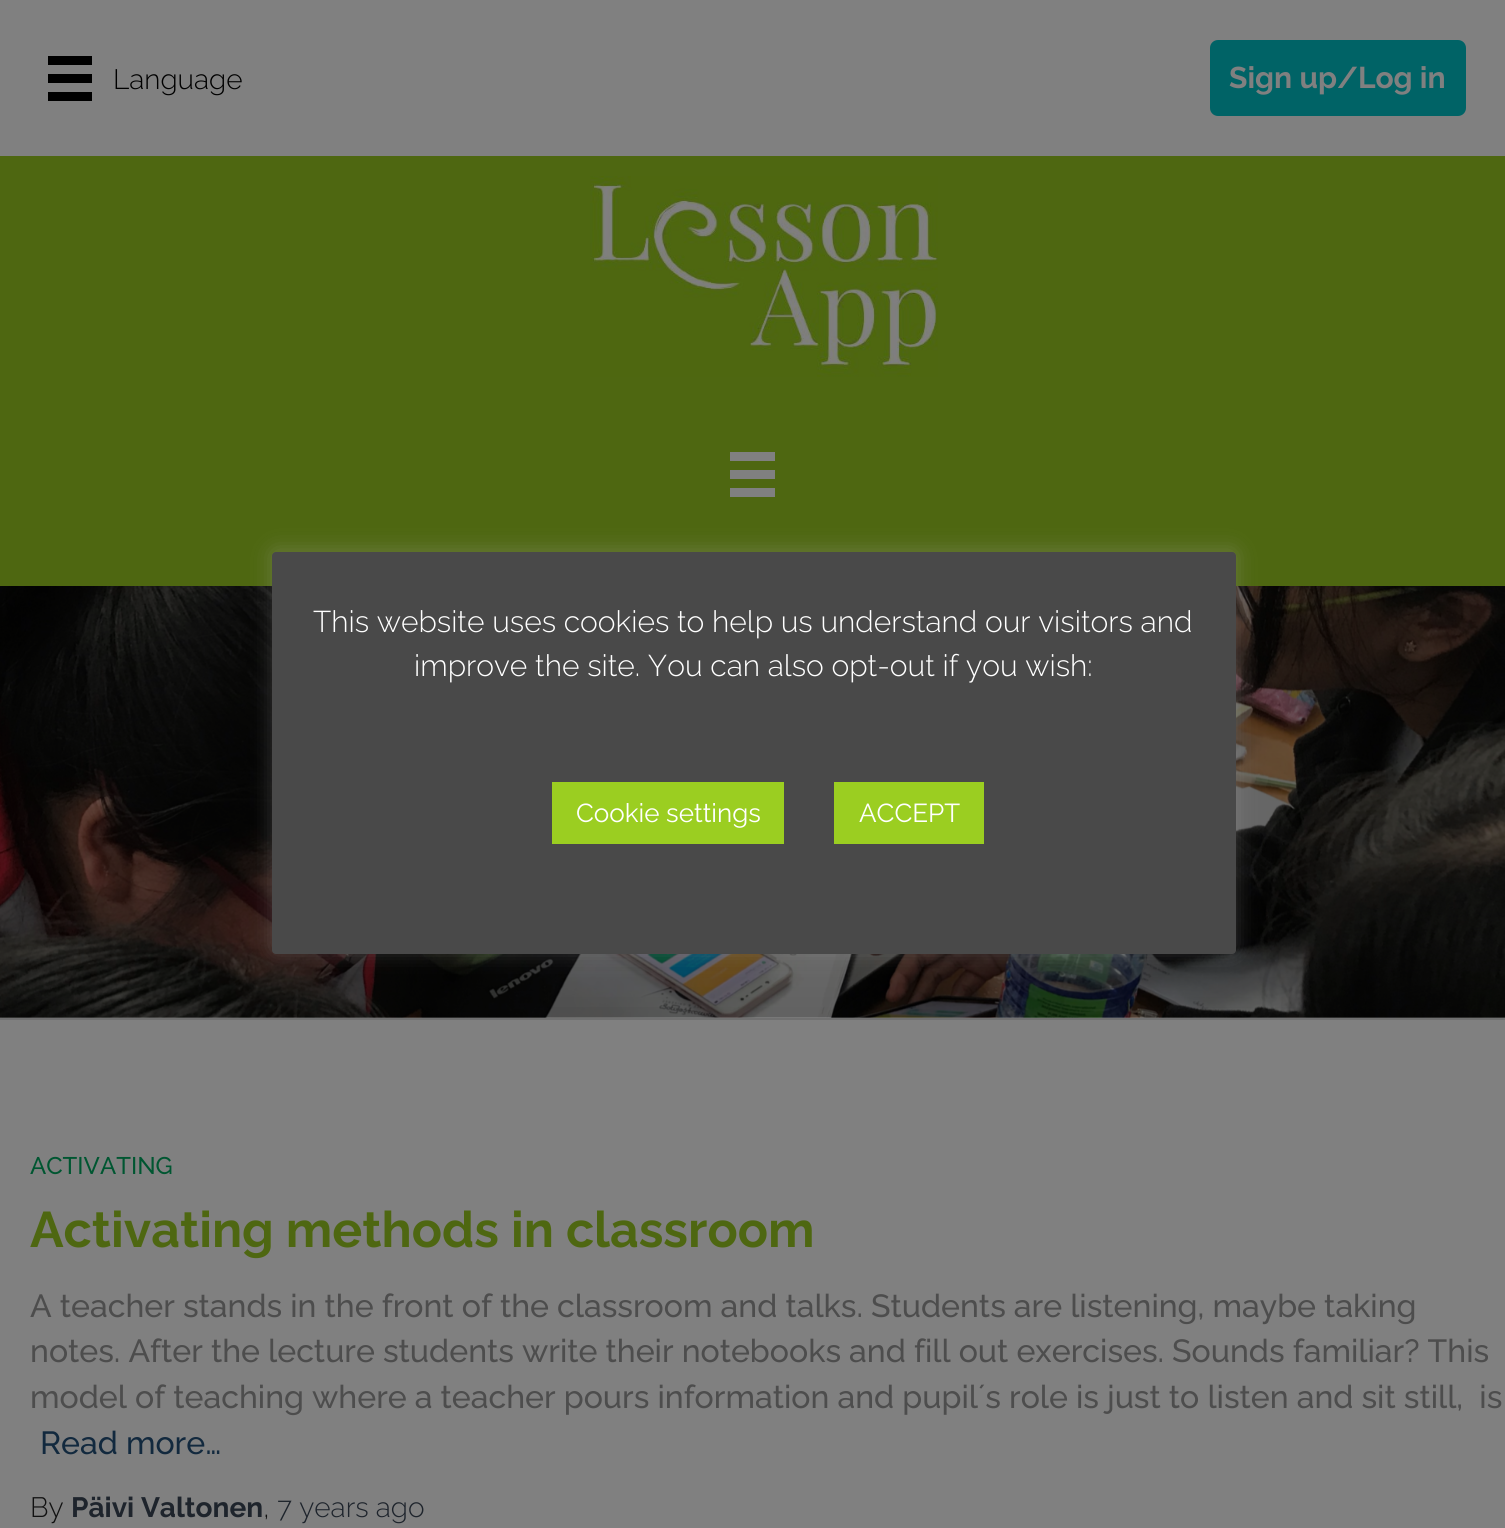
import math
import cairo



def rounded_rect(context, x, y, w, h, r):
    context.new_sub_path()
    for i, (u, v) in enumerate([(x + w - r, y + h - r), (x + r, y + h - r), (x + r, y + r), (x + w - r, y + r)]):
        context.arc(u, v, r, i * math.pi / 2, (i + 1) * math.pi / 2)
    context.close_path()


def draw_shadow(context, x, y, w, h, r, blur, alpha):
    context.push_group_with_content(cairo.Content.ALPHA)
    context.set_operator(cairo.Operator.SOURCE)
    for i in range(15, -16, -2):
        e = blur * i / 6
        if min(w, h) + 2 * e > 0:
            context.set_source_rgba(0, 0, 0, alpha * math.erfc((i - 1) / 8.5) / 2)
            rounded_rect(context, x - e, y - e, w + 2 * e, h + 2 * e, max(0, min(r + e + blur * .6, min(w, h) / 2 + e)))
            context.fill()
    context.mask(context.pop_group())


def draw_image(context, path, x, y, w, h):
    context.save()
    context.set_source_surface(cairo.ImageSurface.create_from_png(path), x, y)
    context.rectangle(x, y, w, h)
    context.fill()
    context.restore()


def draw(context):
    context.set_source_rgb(1, 1, 1)
    context.paint()
    context.set_source_rgb(128 / 255, 128 / 255, 128 / 255)
    context.rectangle(0, 0, 1505, 156)
    context.fill()
    context.set_source_rgb(0, 0, 0)
    context.rectangle(48, 56, 44, 9)
    context.fill()
    context.rectangle(48, 74, 44, 9)
    context.fill()
    context.rectangle(48, 92, 44, 9)
    context.fill()
    context.set_source_rgb(0, 99 / 255, 102 / 255)
    rounded_rect(context, 1210, 40, 256, 76, 8)
    context.fill()
    context.set_source_rgb(78 / 255, 103 / 255, 17 / 255)
    context.rectangle(0, 156, 1505, 430)
    context.fill()
    draw_image(context, "images/1.png", 590, 176, 348, 201)
    context.set_source_rgb(128 / 255, 128 / 255, 128 / 255)
    context.rectangle(730, 452, 45, 9)
    context.fill()
    context.rectangle(730, 470, 45, 9)
    context.fill()
    context.rectangle(730, 488, 45, 9)
    context.fill()
    context.set_source_rgb(119 / 255, 119 / 255, 119 / 255)
    context.rectangle(0, 1018, 1505, 2)
    context.fill()
    draw_image(context, "images/2.png", 0, 586, 1505, 432)
    context.set_source_rgb(0, 0, 0)
    draw_shadow(context, -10, 1022, 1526, 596, 0, 30, 0.12)
    context.set_source_rgb(128 / 255, 128 / 255, 128 / 255)
    context.rectangle(0, 1020, 1505, 508)
    context.fill()
    context.set_source_rgb(172 / 255, 171 / 255, 171 / 255)
    draw_shadow(context, 272, 550, 964, 402, 4, 10, 0.3)
    context.set_source_rgb(73 / 255, 73 / 255, 73 / 255)
    rounded_rect(context, 272, 552, 964, 402, 4)
    context.fill()
    context.set_source_rgb(155 / 255, 206 / 255, 33 / 255)
    context.rectangle(552, 782, 232, 62)
    context.fill()
    context.rectangle(834, 782, 150, 62)
    context.fill()
    context.select_font_face("Raleway Light")
    context.set_font_size(28)
    context.set_source_rgb(0, 0, 0)
    context.move_to(113, 89)
    context.show_text("Language")
    context.select_font_face("Raleway", cairo.FontSlant.NORMAL, cairo.FontWeight.BOLD)
    context.set_font_size(30)
    context.set_source_rgb(128 / 255, 128 / 255, 128 / 255)
    context.move_to(1229, 88)
    context.show_text("Sign up/Log in")
    context.select_font_face("Raleway Thin")
    context.set_font_size(24)
    context.set_source_rgb(0, 86 / 255, 49 / 255)
    context.move_to(30, 1174)
    context.show_text("ACTIVATING")
    context.select_font_face("Raleway", cairo.FontSlant.NORMAL, cairo.FontWeight.BOLD)
    context.set_font_size(50)
    context.set_source_rgb(78 / 255, 103 / 255, 17 / 255)
    context.move_to(30, 1247)
    context.show_text("Activating methods in classroom")
    context.select_font_face("Raleway Thin")
    context.set_font_size(32)
    context.set_source_rgb(77 / 255, 77 / 255, 77 / 255)
    context.move_to(30, 1317)
    context.show_text("A teacher stands in the front of the classroom and talks. Students are listening, maybe taking")
    context.move_to(30, 1362)
    context.show_text("notes. After the lecture students write their notebooks and fill out exercises. Sounds familiar? This")
    context.move_to(30, 1408)
    context.show_text("model of teaching where a teacher pours information and pupil´s role is just to listen and sit still,  is")
    context.set_source_rgb(18 / 255, 41 / 255, 62 / 255)
    context.move_to(40, 1454)
    context.show_text("Read more…")
    context.select_font_face("Raleway Light")
    context.set_font_size(28)
    context.set_source_rgb(17 / 255, 17 / 255, 17 / 255)
    context.move_to(30, 1517)
    context.show_text("By")
    context.select_font_face("Raleway", cairo.FontSlant.NORMAL, cairo.FontWeight.BOLD)
    context.set_source_rgb(30 / 255, 36 / 255, 44 / 255)
    context.move_to(71, 1517)
    context.show_text("Päivi Valtonen")
    context.select_font_face("Raleway Light")
    context.set_source_rgb(17 / 255, 17 / 255, 17 / 255)
    context.move_to(263, 1517)
    context.show_text(",")
    context.set_source_rgb(30 / 255, 36 / 255, 44 / 255)
    context.move_to(277, 1517)
    context.show_text("7 years ago")
    context.set_font_size(30)
    context.set_source_rgb(1, 1, 1)
    context.move_to(313, 632)
    context.show_text("This website uses cookies to help us understand our visitors and")
    context.move_to(414, 676)
    context.show_text("improve the site. You can also opt-out if you wish:")
    context.select_font_face("Raleway")
    context.set_font_size(26)
    context.move_to(576, 822)
    context.show_text("Cookie settings")
    context.move_to(859, 822)
    context.show_text("ACCEPT")


surface = cairo.ImageSurface(cairo.Format.RGB24, 1505, 1528)
context = cairo.Context(surface)
options = cairo.FontOptions()
options.set_hint_metrics(cairo.HintMetrics.OFF)
options.set_hint_style(cairo.HintStyle.NONE)
context.set_font_options(options)
context.set_miter_limit(4)
draw(context)
surface.write_to_png("out.png")
